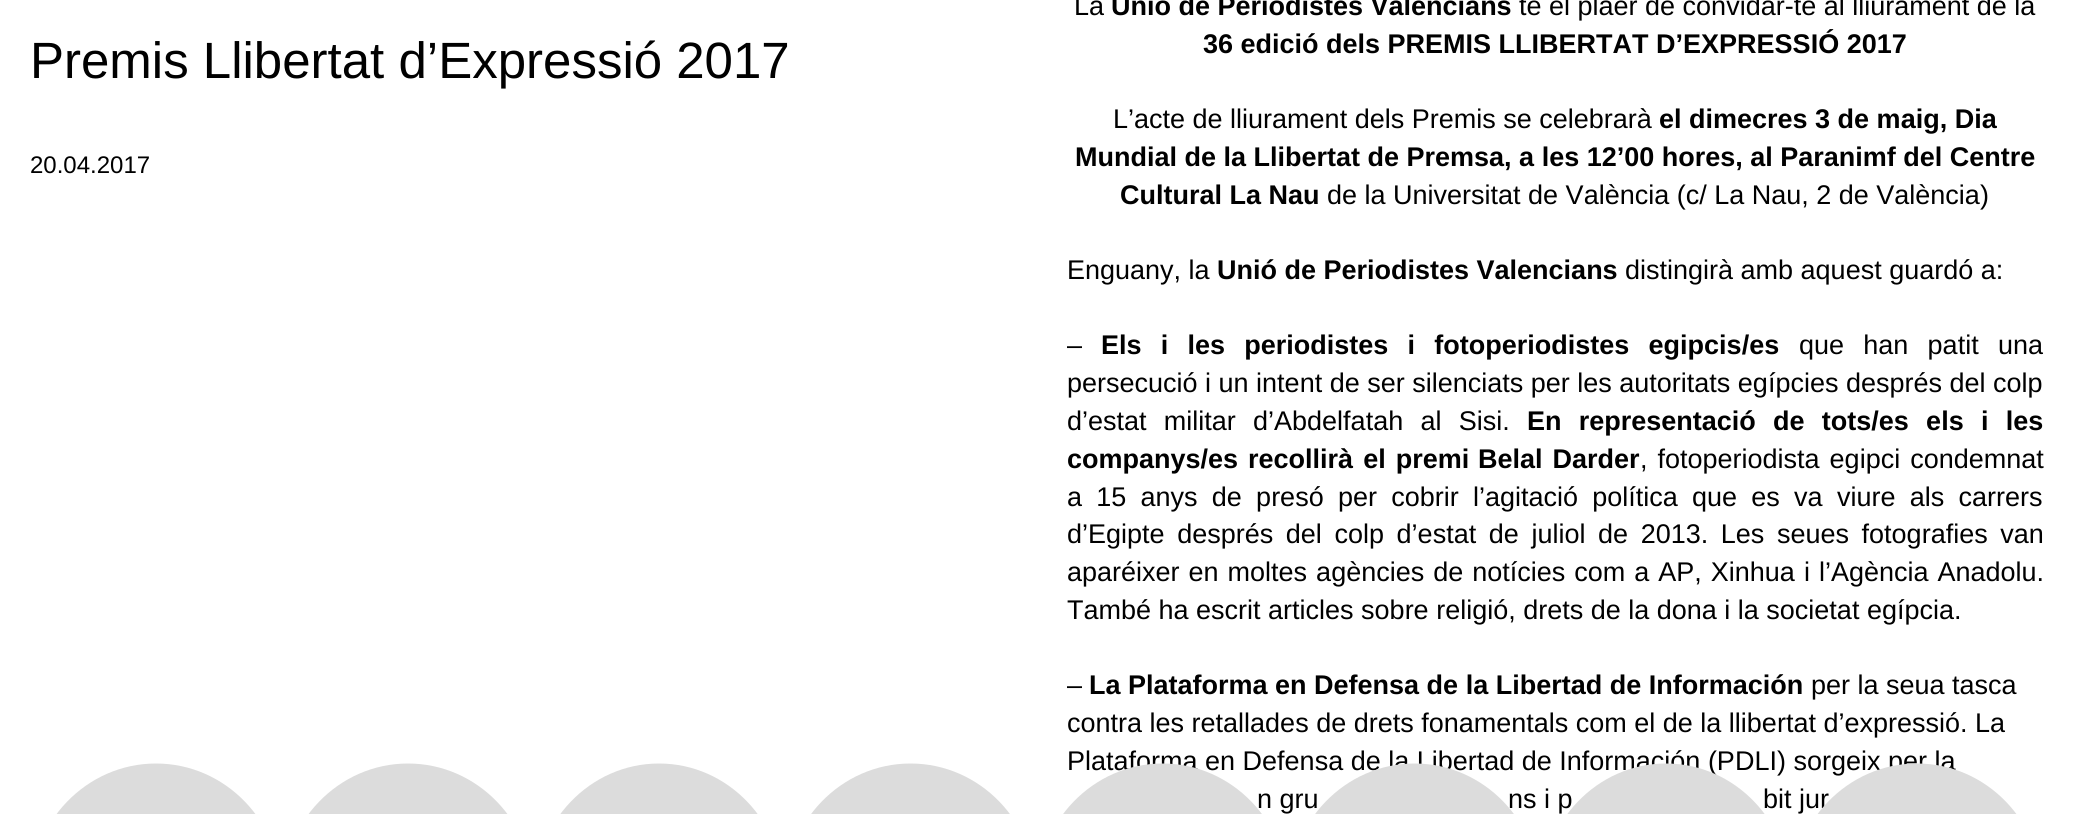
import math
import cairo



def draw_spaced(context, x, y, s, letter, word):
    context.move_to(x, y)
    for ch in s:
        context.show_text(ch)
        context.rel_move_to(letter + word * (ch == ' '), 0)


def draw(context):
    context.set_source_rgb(1, 1, 1)
    context.paint()
    context.set_source_rgb(220 / 255, 220 / 255, 220 / 255)
    context.new_path()
    context.move_to(156, 763.5)
    context.curve_to(225.5, 763.5, 282, 822, 282, 894.5)
    context.curve_to(282, 967, 225.5, 1025.5, 156, 1025.5)
    context.curve_to(86.5, 1025.5, 30, 967, 30, 894.5)
    context.curve_to(30, 822, 86.5, 763.5, 156, 763.5)
    context.close_path()
    context.fill()
    context.new_path()
    context.move_to(408, 763.5)
    context.curve_to(477.5, 763.5, 534, 822, 534, 894.5)
    context.curve_to(534, 967, 477.5, 1025.5, 408, 1025.5)
    context.curve_to(338.5, 1025.5, 282, 967, 282, 894.5)
    context.curve_to(282, 822, 338.5, 763.5, 408, 763.5)
    context.close_path()
    context.fill()
    context.new_path()
    context.move_to(659, 763.5)
    context.curve_to(728, 763.5, 784, 822, 784, 894.5)
    context.curve_to(784, 967, 728, 1025.5, 659, 1025.5)
    context.curve_to(590, 1025.5, 534, 967, 534, 894.5)
    context.curve_to(534, 822, 590, 763.5, 659, 763.5)
    context.close_path()
    context.fill()
    context.new_path()
    context.move_to(910.5, 763.5)
    context.curve_to(980, 763.5, 1036.5, 822, 1036.5, 894.5)
    context.curve_to(1036.5, 967, 980, 1025.5, 910.5, 1025.5)
    context.curve_to(841, 1025.5, 784.5, 967, 784.5, 894.5)
    context.curve_to(784.5, 822, 841, 763.5, 910.5, 763.5)
    context.close_path()
    context.fill()
    context.select_font_face("Liberation Sans")
    context.set_font_size(51)
    context.set_source_rgb(0, 0, 0)
    context.move_to(30, 78)
    context.show_text("Premis Llibertat d’Expressió 2017")
    context.set_font_size(24)
    context.move_to(30, 173)
    context.show_text("20.04.2017")
    context.set_font_size(27)
    context.move_to(1074, 15)
    context.show_text("La")
    context.select_font_face("Liberation Sans", cairo.FontSlant.NORMAL, cairo.FontWeight.BOLD)
    context.move_to(1111, 15)
    context.show_text("Unió de Periodistes Valencians")
    context.select_font_face("Liberation Sans")
    context.move_to(1519, 15)
    context.show_text("té el plaer de convidar-te al lliurament de la")
    context.select_font_face("Liberation Sans", cairo.FontSlant.NORMAL, cairo.FontWeight.BOLD)
    context.move_to(1203, 53)
    context.show_text("36 edició dels PREMIS LLIBERTAT D’EXPRESSIÓ 2017")
    context.select_font_face("Liberation Sans")
    context.move_to(1113, 128)
    context.show_text("L’acte de lliurament dels Premis se celebrarà")
    context.select_font_face("Liberation Sans", cairo.FontSlant.NORMAL, cairo.FontWeight.BOLD)
    context.move_to(1659, 128)
    context.show_text("el dimecres 3 de maig, Dia")
    context.move_to(1075, 166)
    context.show_text("Mundial de la Llibertat de Premsa, a les 12’00 hores, al Paranimf del Centre")
    context.move_to(1120, 204)
    context.show_text("Cultural La Nau")
    context.select_font_face("Liberation Sans")
    context.move_to(1327, 204)
    context.show_text("de la Universitat de València (c/ La Nau, 2 de València)")
    context.move_to(1067, 279)
    context.show_text("Enguany, la")
    context.select_font_face("Liberation Sans", cairo.FontSlant.NORMAL, cairo.FontWeight.BOLD)
    context.move_to(1217, 279)
    context.show_text("Unió de Periodistes Valencians")
    context.select_font_face("Liberation Sans")
    context.move_to(1625, 279)
    context.show_text("distingirà amb aquest guardó a:")
    context.move_to(1067, 354)
    context.show_text("–")
    context.select_font_face("Liberation Sans", cairo.FontSlant.NORMAL, cairo.FontWeight.BOLD)
    draw_spaced(context, 1101, 354, "Els i les periodistes i fotoperiodistes egipcis/es", 0, 11.75)
    context.select_font_face("Liberation Sans")
    draw_spaced(context, 1799, 354, "que han patit una", 0, 11.75)
    context.move_to(1067, 392)
    context.show_text("persecució i un intent de ser silenciats per les autoritats egípcies després del colp")
    draw_spaced(context, 1067, 430, "d’estat militar d’Abdelfatah al Sisi.", 0, 9.75)
    context.select_font_face("Liberation Sans", cairo.FontSlant.NORMAL, cairo.FontWeight.BOLD)
    draw_spaced(context, 1527, 430, "En representació de tots/es els i les", 0, 9.75)
    draw_spaced(context, 1067, 468, "companys/es recollirà el premi", 0, 2.5)
    draw_spaced(context, 1478, 468, "Belal Darder", 0, 2.5)
    context.select_font_face("Liberation Sans")
    draw_spaced(context, 1640, 468, ", fotoperiodista egipci condemnat", 0, 2.5)
    draw_spaced(context, 1067, 506, "a 15 anys de presó per cobrir l’agitació política que es va viure als carrers", 0, 6.75)
    draw_spaced(context, 1067, 543, "d’Egipte després del colp d’estat de juliol de 2013. Les seues fotografies van", 0, 5.1)
    draw_spaced(context, 1067, 581, "aparéixer en moltes agències de notícies com a AP, Xinhua i l’Agència Anadolu.", 0, 1.5)
    context.move_to(1067, 619)
    context.show_text("També ha escrit articles sobre religió, drets de la dona i la societat egípcia.")
    context.move_to(1067, 694)
    context.show_text("–")
    context.select_font_face("Liberation Sans", cairo.FontSlant.NORMAL, cairo.FontWeight.BOLD)
    context.move_to(1089, 694)
    context.show_text("La Plataforma en Defensa de la Libertad de Información")
    context.select_font_face("Liberation Sans")
    context.move_to(1811, 694)
    context.show_text("per la seua tasca")
    context.move_to(1067, 732)
    context.show_text("contra les retallades de drets fonamentals com el de la llibertat d’expressió. La")
    context.move_to(1067, 770)
    context.show_text("Plataforma en Defensa de la Libertad de Información (PDLI) sorgeix per la")
    context.move_to(1257, 808)
    context.show_text("n gru")
    context.move_to(1508, 808)
    context.show_text("ns i p")
    context.move_to(1763, 808)
    context.show_text("bit jur")
    context.set_source_rgb(220 / 255, 220 / 255, 220 / 255)
    context.new_path()
    context.move_to(1162.5, 763.5)
    context.curve_to(1232, 763.5, 1288.5, 822, 1288.5, 894.5)
    context.curve_to(1288.5, 967, 1232, 1025.5, 1162.5, 1025.5)
    context.curve_to(1093, 1025.5, 1036.5, 967, 1036.5, 894.5)
    context.curve_to(1036.5, 822, 1093, 763.5, 1162.5, 763.5)
    context.close_path()
    context.fill()
    context.new_path()
    context.move_to(1414.5, 763.5)
    context.curve_to(1484, 763.5, 1540.5, 822, 1540.5, 894.5)
    context.curve_to(1540.5, 967, 1484, 1025.5, 1414.5, 1025.5)
    context.curve_to(1345, 1025.5, 1288.5, 967, 1288.5, 894.5)
    context.curve_to(1288.5, 822, 1345, 763.5, 1414.5, 763.5)
    context.close_path()
    context.fill()
    context.new_path()
    context.move_to(1666, 763.5)
    context.curve_to(1735, 763.5, 1791, 822, 1791, 894.5)
    context.curve_to(1791, 967, 1735, 1025.5, 1666, 1025.5)
    context.curve_to(1597, 1025.5, 1541, 967, 1541, 894.5)
    context.curve_to(1541, 822, 1597, 763.5, 1666, 763.5)
    context.close_path()
    context.fill()
    context.new_path()
    context.move_to(1917, 763.5)
    context.curve_to(1986.5, 763.5, 2043, 822, 2043, 894.5)
    context.curve_to(2043, 967, 1986.5, 1025.5, 1917, 1025.5)
    context.curve_to(1847.5, 1025.5, 1791, 967, 1791, 894.5)
    context.curve_to(1791, 822, 1847.5, 763.5, 1917, 763.5)
    context.close_path()
    context.fill()


surface = cairo.ImageSurface(cairo.Format.RGB24, 2073, 814)
context = cairo.Context(surface)
options = cairo.FontOptions()
options.set_hint_metrics(cairo.HintMetrics.OFF)
options.set_hint_style(cairo.HintStyle.NONE)
context.set_font_options(options)
context.set_miter_limit(4)
draw(context)
surface.write_to_png("out.png")
